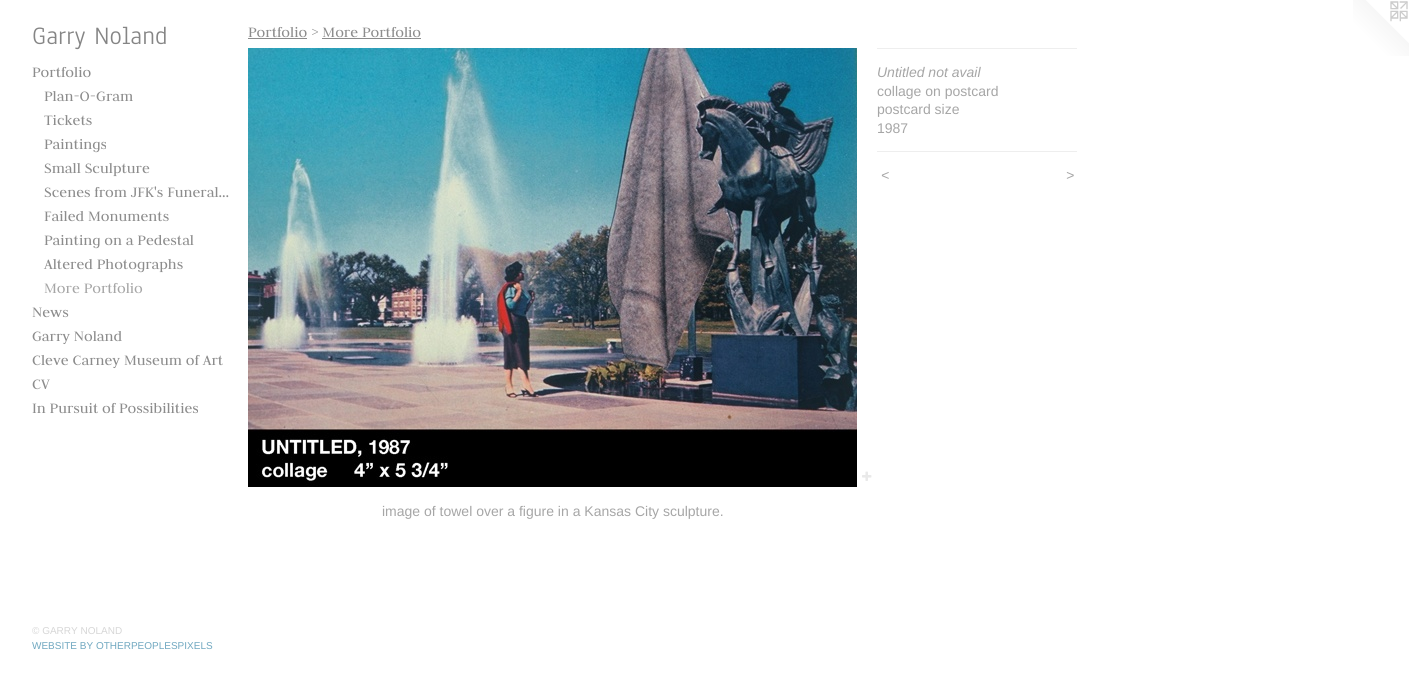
import math
import cairo



def draw_spaced(context, x, y, s, letter, word):
    context.move_to(x, y)
    for ch in s:
        context.show_text(ch)
        context.rel_move_to(letter + word * (ch == ' '), 0)


def draw_image(context, path, x, y, w, h):
    context.save()
    context.set_source_surface(cairo.ImageSurface.create_from_png(path), x, y)
    context.rectangle(x, y, w, h)
    context.fill()
    context.restore()


def draw(context):
    context.set_source_rgb(1, 1, 1)
    context.paint()
    context.set_source_rgb(140 / 255, 140 / 255, 140 / 255)
    context.rectangle(248, 38, 59, 1)
    context.fill()
    context.rectangle(322, 38, 99, 1)
    context.fill()
    draw_image(context, "images/1.png", 248, 48, 609, 439)
    draw_image(context, "images/2.png", 862, 471, 10, 10)
    context.set_source_rgb(238 / 255, 238 / 255, 238 / 255)
    context.rectangle(877, 48, 200, 1)
    context.fill()
    context.rectangle(877, 151, 200, 1)
    context.fill()
    draw_image(context, "images/3.png", 1353, 0, 56, 56)
    context.select_font_face("Anaheim")
    context.set_font_size(26)
    context.set_source_rgb(133 / 255, 133 / 255, 133 / 255)
    context.move_to(32, 44)
    context.show_text("Garry Noland")
    context.select_font_face("Judson")
    context.set_font_size(16)
    context.set_source_rgb(140 / 255, 140 / 255, 140 / 255)
    context.move_to(32, 77)
    context.show_text("Portfolio")
    context.move_to(44, 101)
    context.show_text("Plan-O-Gram")
    context.move_to(44, 125)
    context.show_text("Tickets")
    context.move_to(44, 149)
    context.show_text("Paintings")
    context.move_to(44, 173)
    context.show_text("Small Sculpture")
    context.move_to(44, 197)
    context.show_text("Scenes from JFK's Funeral…")
    context.move_to(44, 221)
    context.show_text("Failed Monuments")
    context.move_to(44, 245)
    context.show_text("Painting on a Pedestal")
    context.move_to(44, 269)
    context.show_text("Altered Photographs")
    context.set_source_rgb(166 / 255, 166 / 255, 166 / 255)
    context.move_to(44, 293)
    context.show_text("More Portfolio")
    context.set_source_rgb(140 / 255, 140 / 255, 140 / 255)
    context.move_to(32, 317)
    context.show_text("News")
    context.move_to(32, 341)
    context.show_text("Garry Noland")
    context.move_to(32, 365)
    context.show_text("Cleve Carney Museum of Art")
    context.move_to(32, 389)
    context.show_text("CV")
    context.move_to(32, 413)
    context.show_text("In Pursuit of Possibilities")
    context.select_font_face("Liberation Sans")
    context.set_font_size(10)
    context.set_source_rgb(214 / 255, 214 / 255, 214 / 255)
    context.move_to(32, 634)
    context.show_text("© GARRY NOLAND")
    context.set_source_rgb(112 / 255, 168 / 255, 192 / 255)
    context.move_to(32, 649)
    context.show_text("WEBSITE BY OTHERPEOPLESPIXELS")
    context.select_font_face("Judson")
    context.set_font_size(16)
    context.set_source_rgb(140 / 255, 140 / 255, 140 / 255)
    context.move_to(248, 37)
    context.show_text("Portfolio > More Portfolio")
    context.select_font_face("Liberation Sans", cairo.FontSlant.ITALIC)
    context.set_font_size(14)
    context.set_source_rgb(166 / 255, 166 / 255, 166 / 255)
    context.move_to(877, 77)
    context.show_text("Untitled not avail")
    context.select_font_face("Liberation Sans")
    context.move_to(877, 96)
    context.show_text("collage on postcard")
    context.move_to(877, 114)
    context.show_text("postcard size")
    context.move_to(877, 133)
    context.show_text("1987")
    context.select_font_face("Liberation Sans", cairo.FontSlant.ITALIC)
    draw_spaced(context, 881, 180, "<", 1, 0)
    draw_spaced(context, 1066, 180, ">", 1, 0)
    context.select_font_face("Liberation Sans")
    context.move_to(382, 516)
    context.show_text("image of towel over a figure in a Kansas City sculpture.")


surface = cairo.ImageSurface(cairo.Format.RGB24, 1409, 676)
context = cairo.Context(surface)
options = cairo.FontOptions()
options.set_hint_metrics(cairo.HintMetrics.OFF)
options.set_hint_style(cairo.HintStyle.NONE)
context.set_font_options(options)
context.set_miter_limit(4)
draw(context)
surface.write_to_png("out.png")
